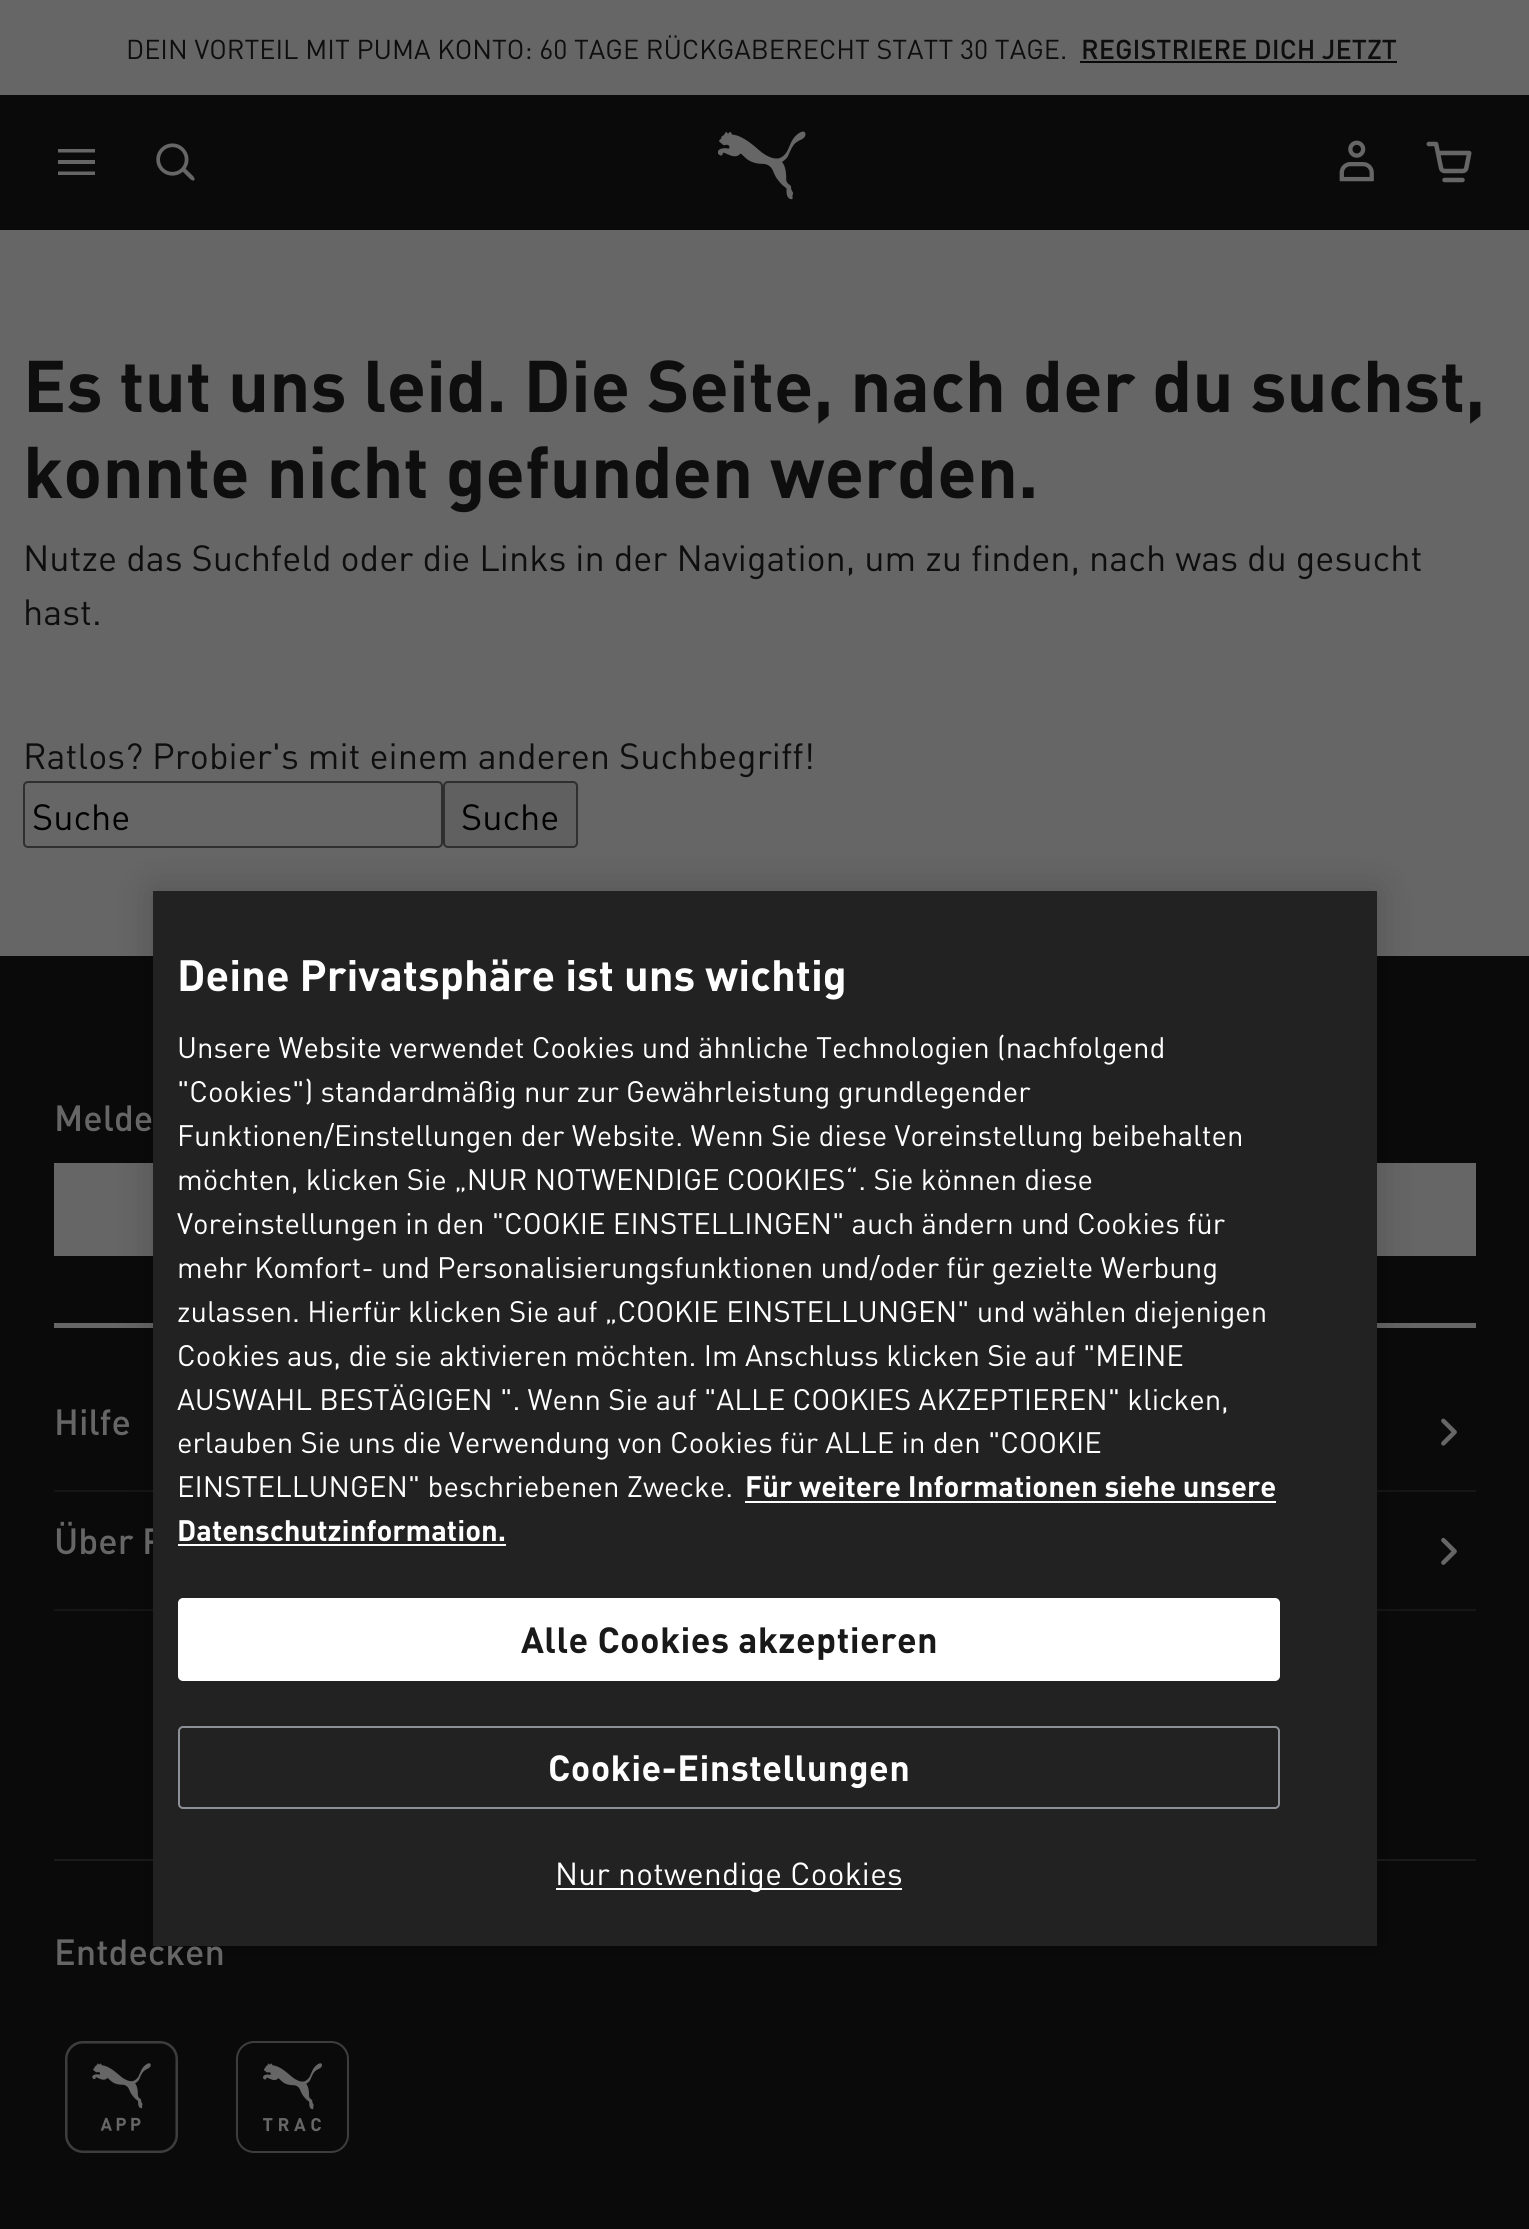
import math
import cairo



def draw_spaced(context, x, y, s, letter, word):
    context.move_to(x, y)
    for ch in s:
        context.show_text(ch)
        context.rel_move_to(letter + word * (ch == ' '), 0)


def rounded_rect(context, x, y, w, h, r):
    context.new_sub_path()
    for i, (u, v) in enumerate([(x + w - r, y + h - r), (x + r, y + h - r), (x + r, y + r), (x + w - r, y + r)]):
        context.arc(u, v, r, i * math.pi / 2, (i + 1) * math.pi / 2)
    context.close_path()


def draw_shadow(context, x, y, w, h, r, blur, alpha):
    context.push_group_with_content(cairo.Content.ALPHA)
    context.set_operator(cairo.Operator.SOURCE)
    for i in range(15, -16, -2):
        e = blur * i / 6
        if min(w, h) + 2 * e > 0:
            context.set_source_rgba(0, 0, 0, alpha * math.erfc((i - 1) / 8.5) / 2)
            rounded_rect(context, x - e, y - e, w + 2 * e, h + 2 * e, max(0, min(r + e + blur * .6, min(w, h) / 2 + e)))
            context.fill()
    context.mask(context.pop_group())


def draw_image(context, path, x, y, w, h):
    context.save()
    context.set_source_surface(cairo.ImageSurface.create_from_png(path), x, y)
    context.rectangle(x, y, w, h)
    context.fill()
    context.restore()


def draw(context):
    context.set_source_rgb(102 / 255, 102 / 255, 102 / 255)
    context.paint()
    context.set_source_rgb(10 / 255, 10 / 255, 10 / 255)
    context.rectangle(1080, 61, 317, 2)
    context.fill()
    context.rectangle(0, 95, 1529, 135)
    context.fill()
    context.set_source_rgb(102 / 255, 102 / 255, 102 / 255)
    context.new_path()
    context.move_to(58, 152.5)
    context.line_to(58, 149)
    context.line_to(95, 149)
    context.line_to(95, 152.5)
    context.close_path()
    context.move_to(58, 164)
    context.line_to(95, 164)
    context.line_to(95, 160)
    context.line_to(58, 160)
    context.close_path()
    context.move_to(58, 175)
    context.line_to(95, 175)
    context.line_to(95, 171.5)
    context.line_to(58, 171.5)
    context.close_path()
    context.fill()
    draw_image(context, "images/1.png", 156, 143, 39, 38)
    draw_image(context, "images/2.png", 718, 131, 88, 69)
    draw_image(context, "images/3.png", 1339, 140, 35, 42)
    draw_image(context, "images/4.png", 1426, 141, 46, 42)
    rounded_rect(context, 24, 782, 418, 65, 4)
    context.set_source_rgb(47 / 255, 47 / 255, 47 / 255)
    context.stroke()
    context.set_source_rgb(96 / 255, 96 / 255, 96 / 255)
    rounded_rect(context, 444, 782, 133, 65, 4)
    context.fill_preserve()
    context.set_source_rgb(47 / 255, 47 / 255, 47 / 255)
    context.stroke()
    context.set_source_rgb(10 / 255, 10 / 255, 10 / 255)
    context.rectangle(0, 956, 1529, 1273)
    context.fill()
    context.set_source_rgb(102 / 255, 102 / 255, 102 / 255)
    context.rectangle(54, 1163, 1422, 93)
    context.fill()
    context.rectangle(54, 1323, 1422, 5)
    context.fill()
    context.set_source_rgb(22 / 255, 22 / 255, 22 / 255)
    context.rectangle(54, 1490, 1422, 2)
    context.fill()
    draw_image(context, "images/5.png", 1441, 1418, 16, 28)
    context.rectangle(54, 1609, 1422, 2)
    context.fill()
    draw_image(context, "images/6.png", 1441, 1537, 16, 28)
    context.set_source_rgb(27 / 255, 27 / 255, 27 / 255)
    context.rectangle(54, 1859, 1422, 2)
    context.fill()
    draw_image(context, "images/7.png", 65, 2041, 113, 112)
    draw_image(context, "images/8.png", 236, 2041, 113, 112)
    context.set_source_rgb(0, 0, 0)
    draw_shadow(context, 153, 891, 1224, 1055, 0, 20, 0.2)
    context.select_font_face("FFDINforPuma")
    context.set_font_size(27)
    context.set_source_rgb(14 / 255, 14 / 255, 14 / 255)
    context.move_to(126, 59)
    context.show_text("DEIN VORTEIL MIT PUMA KONTO: 60 TAGE RÜCKGABERECHT STATT 30 TAGE.")
    context.select_font_face("FFDINforPuma Medium")
    context.move_to(1081, 59)
    context.show_text("REGISTRIERE DICH JETZT")
    context.select_font_face("FFDINforPuma", cairo.FontSlant.NORMAL, cairo.FontWeight.BOLD)
    context.set_font_size(72)
    context.move_to(23, 412)
    context.show_text("Es tut uns leid. Die Seite, nach der du suchst,")
    context.move_to(23, 498)
    context.show_text("konnte nicht gefunden werden.")
    context.select_font_face("FFDINforPuma")
    context.set_font_size(36)
    context.move_to(23, 571)
    context.show_text("Nutze das Suchfeld oder die Links in der Navigation, um zu finden, nach was du gesucht")
    context.move_to(23, 625)
    context.show_text("hast.")
    context.move_to(23, 769)
    context.show_text("Ratlos? Probier's mit einem anderen Suchbegriff!")
    context.set_source_rgb(0, 0, 0)
    context.move_to(32, 830)
    context.show_text("Suche")
    context.move_to(461, 830)
    context.show_text("Suche")
    context.select_font_face("FFDINforPuma Medium")
    context.set_source_rgb(102 / 255, 102 / 255, 102 / 255)
    context.move_to(54, 1131)
    context.show_text("Melde")
    context.move_to(54, 1435)
    context.show_text("Hilfe")
    context.move_to(54, 1554)
    context.show_text("Über P")
    context.move_to(54, 1965)
    context.show_text("Entdecken")
    context.set_source_rgb(34 / 255, 34 / 255, 34 / 255)
    context.rectangle(153, 891, 1224, 1055)
    context.fill()
    context.select_font_face("FFDINforPuma", cairo.FontSlant.NORMAL, cairo.FontWeight.BOLD)
    context.set_font_size(43.25)
    context.set_source_rgb(1, 1, 1)
    context.move_to(177, 991)
    context.show_text("Deine Privatsphäre ist uns wichtig")
    context.select_font_face("FFDINforPuma")
    context.set_font_size(29.25)
    context.move_to(177, 1058)
    context.show_text("Unsere Website verwendet Cookies und ähnliche Technologien (nachfolgend")
    context.move_to(177, 1102)
    context.show_text("\"Cookies\") standardmäßig nur zur Gewährleistung grundlegender")
    context.move_to(177, 1146)
    context.show_text("Funktionen/Einstellungen der Website. Wenn Sie diese Voreinstellung beibehalten")
    context.move_to(177, 1190)
    context.show_text("möchten, klicken Sie „NUR NOTWENDIGE COOKIES“. Sie können diese")
    context.move_to(177, 1234)
    context.show_text("Voreinstellungen in den \"COOKIE EINSTELLINGEN\" auch ändern und Cookies für")
    context.move_to(177, 1278)
    context.show_text("mehr Komfort- und Personalisierungsfunktionen und/oder für gezielte Werbung")
    context.move_to(177, 1322)
    context.show_text("zulassen. Hierfür klicken Sie auf „COOKIE EINSTELLUNGEN\" und wählen diejenigen")
    context.move_to(177, 1366)
    context.show_text("Cookies aus, die sie aktivieren möchten. Im Anschluss klicken Sie auf \"MEINE")
    context.move_to(177, 1410)
    context.show_text("AUSWAHL BESTÄGIGEN \". Wenn Sie auf \"ALLE COOKIES AKZEPTIEREN\" klicken,")
    context.move_to(177, 1453)
    context.show_text("erlauben Sie uns die Verwendung von Cookies für ALLE in den \"COOKIE")
    context.move_to(177, 1497)
    context.show_text("EINSTELLUNGEN\" beschriebenen Zwecke.")
    context.select_font_face("FFDINforPuma", cairo.FontSlant.NORMAL, cairo.FontWeight.BOLD)
    context.move_to(745, 1497)
    context.show_text("Für weitere Informationen siehe unsere")
    context.rectangle(745, 1501, 531, 2)
    context.fill()
    context.move_to(177, 1541)
    context.show_text("Datenschutzinformation.")
    context.rectangle(178, 1544, 328, 2)
    context.fill()
    rounded_rect(context, 179, 1599, 1100, 81, 4)
    context.fill_preserve()
    context.stroke()
    context.set_font_size(36)
    context.set_source_rgb(25 / 255, 25 / 255, 25 / 255)
    draw_spaced(context, 521, 1653, "Alle Cookies akzeptieren", 0.4, 0)
    rounded_rect(context, 179, 1727, 1100, 81, 4)
    context.set_source_rgb(140 / 255, 145 / 255, 152 / 255)
    context.stroke()
    context.set_source_rgb(1, 1, 1)
    draw_spaced(context, 548, 1781, "Cookie-Einstellungen", 0.4, 0)
    context.rectangle(556, 1888, 346, 2)
    context.fill()
    context.select_font_face("FFDINforPuma")
    context.set_font_size(31.5)
    draw_spaced(context, 555, 1885, "Nur notwendige Cookies", 0.3, 0)


surface = cairo.ImageSurface(cairo.Format.RGB24, 1529, 2229)
context = cairo.Context(surface)
options = cairo.FontOptions()
options.set_hint_metrics(cairo.HintMetrics.OFF)
options.set_hint_style(cairo.HintStyle.NONE)
context.set_font_options(options)
context.set_miter_limit(4)
draw(context)
surface.write_to_png("out.png")
